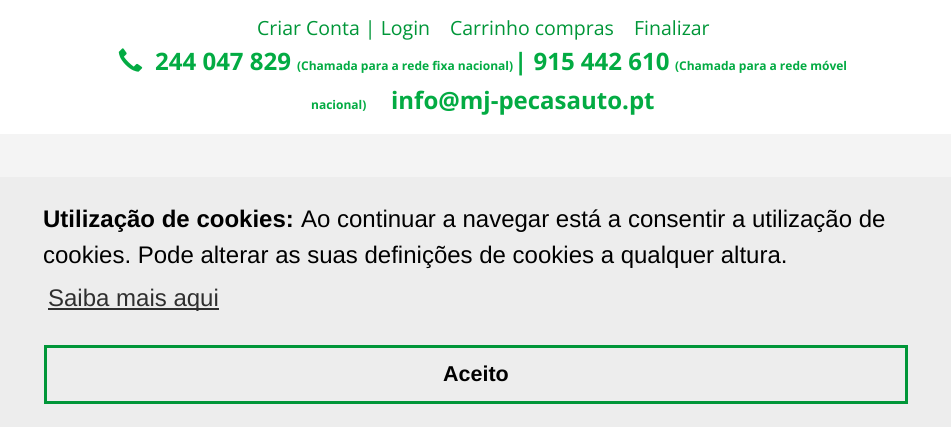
import math
import cairo



def draw_image(context, path, x, y, w, h):
    context.save()
    context.set_source_surface(cairo.ImageSurface.create_from_png(path), x, y)
    context.rectangle(x, y, w, h)
    context.fill()
    context.restore()


def draw(context):
    context.set_source_rgb(244 / 255, 244 / 255, 244 / 255)
    context.paint()
    context.set_source_rgb(1, 1, 1)
    context.rectangle(0, 0, 951, 134)
    context.fill()
    draw_image(context, "images/1.png", 118, 48, 25, 24)
    context.set_source_rgb(237 / 255, 237 / 255, 237 / 255)
    context.rectangle(0, 177, 951, 250)
    context.fill()
    context.set_source_rgb(47 / 255, 47 / 255, 47 / 255)
    context.rectangle(48, 308, 171, 2)
    context.fill()
    context.rectangle(45.5, 346.5, 861, 56)
    context.set_source_rgb(0, 150 / 255, 56 / 255)
    context.set_line_width(3)
    context.stroke()
    context.select_font_face("Open Sans")
    context.set_font_size(19.5)
    context.move_to(257, 35)
    context.show_text("Criar Conta | Login")
    context.move_to(450, 35)
    context.show_text("Carrinho compras")
    context.move_to(634, 35)
    context.show_text("Finalizar")
    context.select_font_face("Open Sans", cairo.FontSlant.NORMAL, cairo.FontWeight.BOLD)
    context.set_font_size(24)
    context.set_source_rgb(3 / 255, 171 / 255, 67 / 255)
    context.move_to(155, 70)
    context.show_text("244 047 829")
    context.set_font_size(12)
    context.move_to(297, 70)
    context.show_text("(Chamada para a rede fixa nacional)")
    context.set_font_size(24)
    context.move_to(514, 70)
    context.show_text("| 915 442 610")
    context.set_font_size(12)
    context.move_to(675, 70)
    context.show_text("(Chamada para a rede móvel")
    context.move_to(311, 109)
    context.show_text("nacional)")
    context.set_font_size(24)
    context.move_to(391, 109)
    context.show_text("info@mj-pecasauto.pt")
    context.select_font_face("Liberation Sans", cairo.FontSlant.NORMAL, cairo.FontWeight.BOLD)
    context.set_source_rgb(0, 0, 0)
    context.move_to(43, 227)
    context.show_text("Utilização de cookies:")
    context.select_font_face("Liberation Sans")
    context.move_to(301, 227)
    context.show_text("Ao continuar a navegar está a consentir a utilização de")
    context.move_to(43, 263)
    context.show_text("cookies. Pode alterar as suas definições de cookies a qualquer altura.")
    context.set_source_rgb(47 / 255, 47 / 255, 47 / 255)
    context.move_to(48, 306)
    context.show_text("Saiba mais aqui")
    context.select_font_face("Liberation Sans", cairo.FontSlant.NORMAL, cairo.FontWeight.BOLD)
    context.set_font_size(21.5)
    context.set_source_rgb(0, 0, 0)
    context.move_to(443, 381)
    context.show_text("Aceito")


surface = cairo.ImageSurface(cairo.Format.RGB24, 951, 427)
context = cairo.Context(surface)
options = cairo.FontOptions()
options.set_hint_metrics(cairo.HintMetrics.OFF)
options.set_hint_style(cairo.HintStyle.NONE)
context.set_font_options(options)
context.set_miter_limit(4)
draw(context)
surface.write_to_png("out.png")
